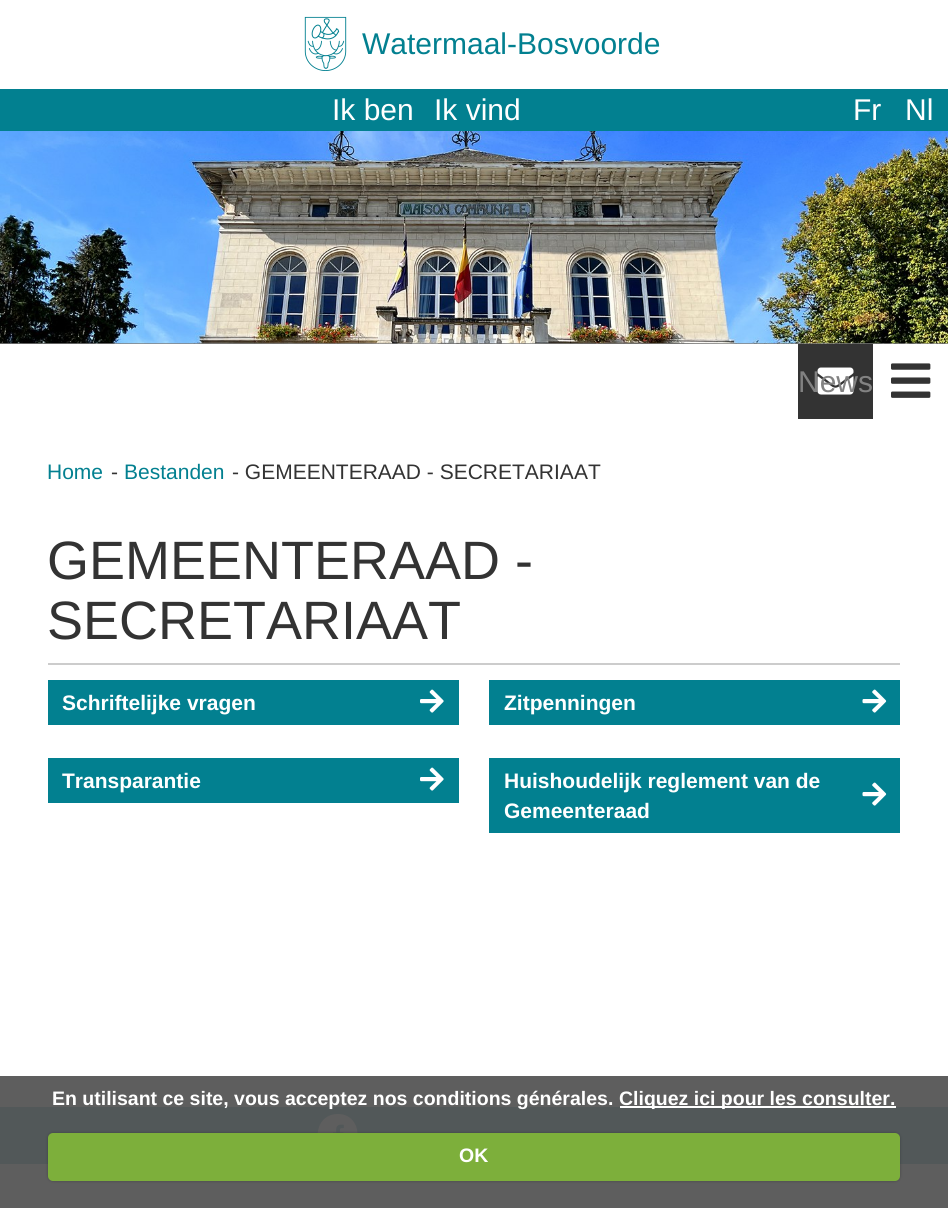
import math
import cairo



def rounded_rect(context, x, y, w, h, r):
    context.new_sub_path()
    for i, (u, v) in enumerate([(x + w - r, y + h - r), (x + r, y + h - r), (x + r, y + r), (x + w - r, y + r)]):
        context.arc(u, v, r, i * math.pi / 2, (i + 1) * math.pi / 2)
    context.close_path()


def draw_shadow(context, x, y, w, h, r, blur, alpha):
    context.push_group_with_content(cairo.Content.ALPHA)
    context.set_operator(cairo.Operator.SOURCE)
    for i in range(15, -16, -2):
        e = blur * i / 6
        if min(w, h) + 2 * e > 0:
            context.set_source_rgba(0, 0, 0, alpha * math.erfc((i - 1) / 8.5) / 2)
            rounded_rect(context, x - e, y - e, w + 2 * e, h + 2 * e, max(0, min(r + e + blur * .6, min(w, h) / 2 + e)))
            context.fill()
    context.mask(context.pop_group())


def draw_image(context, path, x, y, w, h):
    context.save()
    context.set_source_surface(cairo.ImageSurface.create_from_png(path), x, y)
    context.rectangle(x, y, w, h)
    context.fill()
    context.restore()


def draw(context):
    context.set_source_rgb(1, 1, 1)
    context.paint()
    context.set_source_rgb(94 / 255, 94 / 255, 94 / 255)
    context.rectangle(0, 1076, 948, 132)
    context.fill()
    draw_image(context, "images/1.png", 304, 16, 43, 55)
    context.set_source_rgb(2 / 255, 128 / 255, 144 / 255)
    context.rectangle(0, 89, 948, 42)
    context.fill()
    context.set_source_rgb(128 / 255, 128 / 255, 128 / 255)
    context.rectangle(0, 343, 948, 1)
    context.fill()
    draw_image(context, "images/2.png", 0, 131, 948, 213)
    context.set_source_rgb(51 / 255, 51 / 255, 51 / 255)
    context.rectangle(798, 344, 75, 75)
    context.fill()
    draw_image(context, "images/3.png", 817, 367, 37, 28)
    draw_image(context, "images/4.png", 891, 363, 40, 35)
    context.set_source_rgb(204 / 255, 204 / 255, 204 / 255)
    context.rectangle(48, 663, 852, 2)
    context.fill()
    context.set_source_rgb(2 / 255, 128 / 255, 144 / 255)
    context.rectangle(48, 680, 411, 45)
    context.fill()
    draw_image(context, "images/5.png", 420, 689, 24, 24)
    context.rectangle(489, 680, 411, 45)
    context.fill()
    draw_image(context, "images/6.png", 862, 689, 25, 24)
    context.rectangle(48, 758, 411, 45)
    context.fill()
    draw_image(context, "images/5.png", 420, 767, 24, 24)
    context.rectangle(489, 758, 411, 75)
    context.fill()
    draw_image(context, "images/6.png", 862, 782, 25, 24)
    context.set_source_rgb(82 / 255, 88 / 255, 89 / 255)
    context.rectangle(0, 1107, 948, 57)
    context.fill()
    context.set_source_rgb(1, 1, 1)
    context.rectangle(620, 1106, 276, 2)
    context.fill()
    context.set_source_rgb(94 / 255, 94 / 255, 94 / 255)
    context.new_path()
    context.move_to(338, 1114)
    context.curve_to(311, 1114, 311, 1155, 338, 1155)
    context.curve_to(364, 1155, 364, 1114, 338, 1114)
    context.close_path()
    context.fill()
    draw_image(context, "images/7.png", 333, 1124, 11, 9)
    context.set_source_rgb(0, 0, 0)
    draw_shadow(context, 48, 1133, 852, 48, 5, 1.5, 0.25)
    context.set_source_rgb(125 / 255, 175 / 255, 59 / 255)
    rounded_rect(context, 48, 1133, 852, 48, 5)
    context.fill()
    context.select_font_face("Liberation Sans")
    context.set_font_size(30)
    context.set_source_rgb(2 / 255, 128 / 255, 144 / 255)
    context.move_to(362, 54)
    context.show_text("Watermaal-Bosvoorde")
    context.set_source_rgb(1, 1, 1)
    context.move_to(332, 120)
    context.show_text("Ik ben")
    context.move_to(434, 120)
    context.show_text("Ik vind")
    context.move_to(853, 120)
    context.show_text("Fr")
    context.move_to(905, 120)
    context.show_text("Nl")
    context.set_source_rgb(130 / 255, 130 / 255, 130 / 255)
    context.move_to(798, 392)
    context.show_text("News")
    context.set_font_size(21)
    context.set_source_rgb(2 / 255, 128 / 255, 144 / 255)
    context.move_to(47, 479)
    context.show_text("Home")
    context.set_source_rgb(51 / 255, 51 / 255, 51 / 255)
    context.move_to(111, 479)
    context.show_text("-")
    context.set_source_rgb(2 / 255, 128 / 255, 144 / 255)
    context.move_to(124, 479)
    context.show_text("Bestanden")
    context.set_source_rgb(51 / 255, 51 / 255, 51 / 255)
    context.move_to(232, 479)
    context.show_text("- GEMEENTERAAD - SECRETARIAAT")
    context.set_font_size(54)
    context.move_to(47, 579)
    context.show_text("GEMEENTERAAD -")
    context.move_to(47, 639)
    context.show_text("SECRETARIAAT")
    context.select_font_face("Liberation Sans", cairo.FontSlant.NORMAL, cairo.FontWeight.BOLD)
    context.set_font_size(21)
    context.set_source_rgb(1, 1, 1)
    context.move_to(62, 710)
    context.show_text("Schriftelijke vragen")
    context.move_to(504, 710)
    context.show_text("Zitpenningen")
    context.move_to(62, 788)
    context.show_text("Transparantie")
    context.move_to(504, 788)
    context.show_text("Huishoudelijk reglement van de")
    context.move_to(504, 818)
    context.show_text("Gemeenteraad")
    context.set_font_size(19.5)
    context.move_to(52, 1105)
    context.show_text("En utilisant ce site, vous acceptez nos conditions générales.")
    context.move_to(619, 1105)
    context.show_text("Cliquez ici pour les consulter.")
    context.move_to(459, 1162)
    context.show_text("OK")


surface = cairo.ImageSurface(cairo.Format.RGB24, 948, 1208)
context = cairo.Context(surface)
options = cairo.FontOptions()
options.set_hint_metrics(cairo.HintMetrics.OFF)
options.set_hint_style(cairo.HintStyle.NONE)
context.set_font_options(options)
context.set_miter_limit(4)
draw(context)
surface.write_to_png("out.png")
